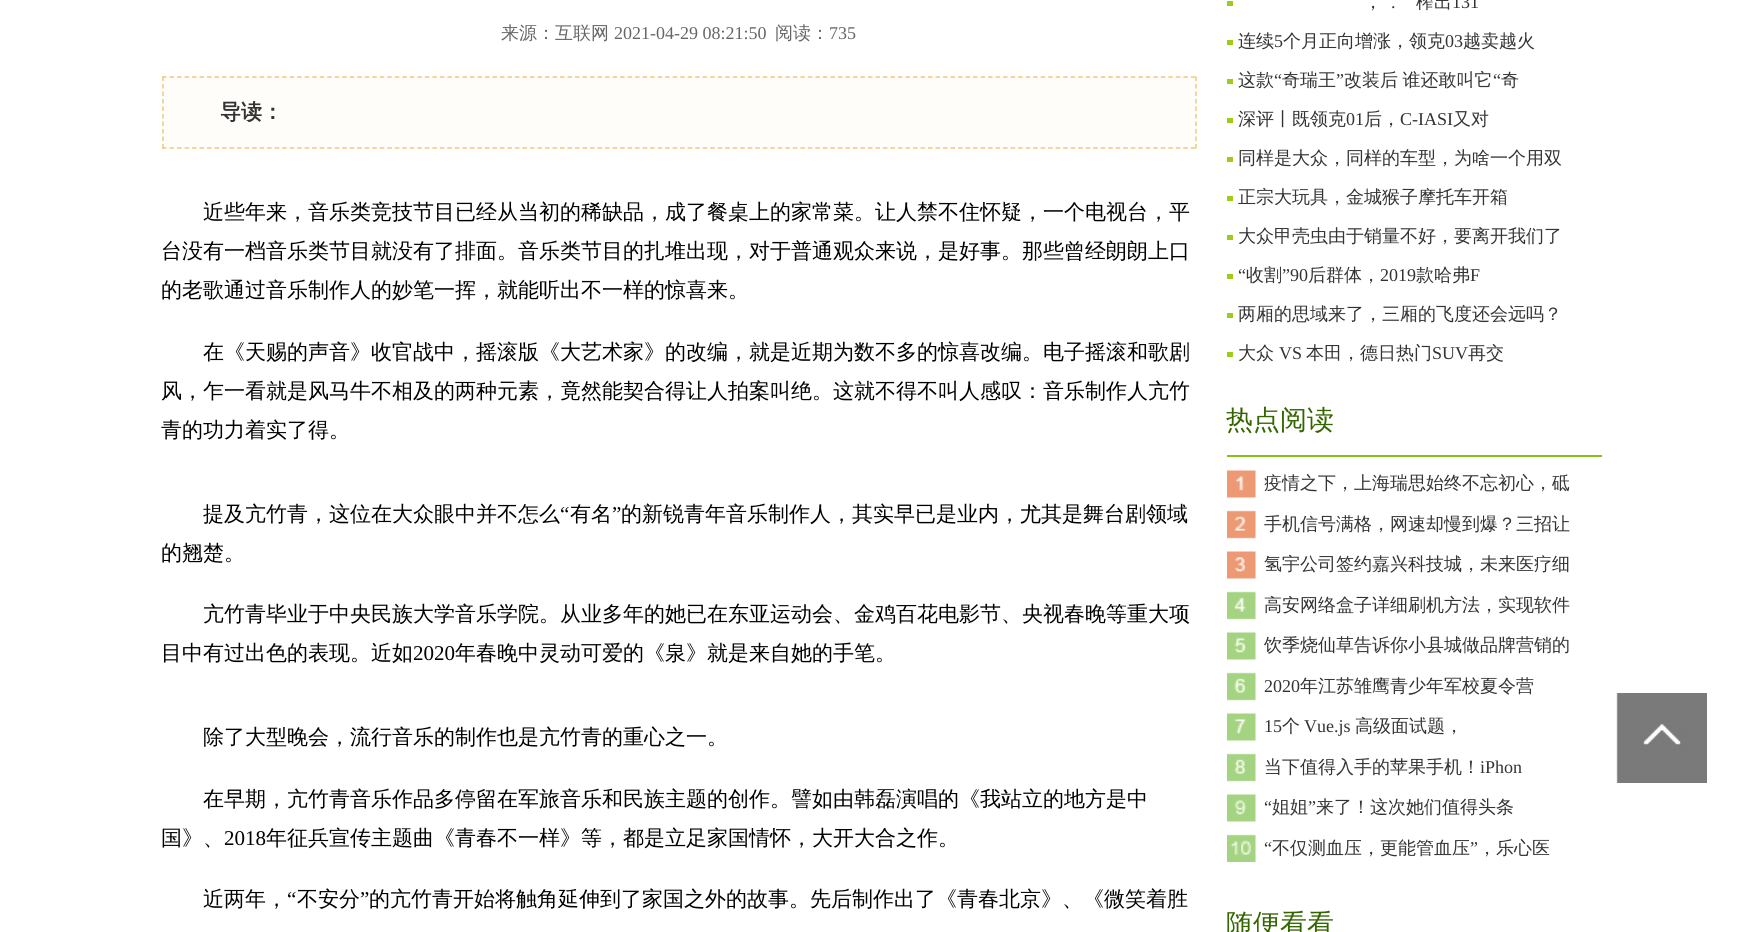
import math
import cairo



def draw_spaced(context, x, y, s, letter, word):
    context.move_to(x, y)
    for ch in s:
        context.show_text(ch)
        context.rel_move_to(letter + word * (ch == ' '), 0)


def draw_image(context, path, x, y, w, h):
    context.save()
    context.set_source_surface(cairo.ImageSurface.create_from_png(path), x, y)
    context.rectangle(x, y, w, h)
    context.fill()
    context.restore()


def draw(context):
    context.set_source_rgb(1, 1, 1)
    context.paint()
    context.set_source_rgb(254 / 255, 253 / 255, 250 / 255)
    context.rectangle(162, 77, 1035, 72)
    context.fill()
    context.new_path()
    context.move_to(162, 77)
    context.line_to(1197, 77)
    context.set_source_rgb(240 / 255, 199 / 255, 129 / 255)
    context.set_line_width(1.5)
    context.set_dash([4.5, 3.01])
    context.stroke()
    context.new_path()
    context.move_to(1196, 76.5)
    context.line_to(1196, 148.5)
    context.set_dash([4.5, 3])
    context.stroke()
    context.new_path()
    context.move_to(162, 148)
    context.line_to(1197, 148)
    context.set_dash([4.5, 3.01])
    context.stroke()
    context.new_path()
    context.move_to(163, 76.5)
    context.line_to(163, 148.5)
    context.set_dash([4.5, 3])
    context.stroke()
    context.set_source_rgb(157 / 255, 205 / 255, 23 / 255)
    context.rectangle(1227, 1, 6, 5)
    context.fill()
    context.rectangle(1227, 40, 6, 5)
    context.fill()
    context.rectangle(1227, 79, 6, 5)
    context.fill()
    context.rectangle(1227, 118, 6, 5)
    context.fill()
    context.rectangle(1227, 157, 6, 5)
    context.fill()
    context.rectangle(1227, 196, 6, 5)
    context.fill()
    context.rectangle(1227, 235, 6, 5)
    context.fill()
    context.rectangle(1227, 274, 6, 5)
    context.fill()
    context.rectangle(1227, 313, 6, 5)
    context.fill()
    context.rectangle(1227, 352, 6, 5)
    context.fill()
    context.set_source_rgb(134 / 255, 191 / 255, 21 / 255)
    context.rectangle(1227, 455, 375, 2)
    context.fill()
    draw_image(context, "images/1.png", 1227, 470, 29, 392)
    draw_image(context, "images/2.png", 1616, 693, 91, 90)
    context.select_font_face("WenQuanYi Zen Hei Medium")
    context.set_font_size(18)
    context.set_source_rgb(102 / 255, 102 / 255, 102 / 255)
    context.move_to(501, 39)
    context.show_text("来源：互联网")
    context.select_font_face("Liberation Serif")
    context.move_to(614, 39)
    context.show_text("2021-04-29 08:21:50")
    context.select_font_face("WenQuanYi Zen Hei Medium")
    context.move_to(775, 39)
    context.show_text("阅读：")
    context.select_font_face("Liberation Serif")
    context.move_to(829, 39)
    context.show_text("735")
    context.select_font_face("WenQuanYi Zen Hei", cairo.FontSlant.NORMAL, cairo.FontWeight.BOLD)
    context.set_font_size(21)
    context.set_source_rgb(51 / 255, 51 / 255, 51 / 255)
    context.move_to(220, 119)
    context.show_text("导读：")
    context.select_font_face("WenQuanYi Zen Hei Medium")
    context.set_source_rgb(0, 0, 0)
    context.move_to(203, 219)
    context.show_text("近些年来，音乐类竞技节目已经从当初的稀缺品，成了餐桌上的家常菜。让人禁不住怀疑，一个电视台，平")
    context.move_to(161, 258)
    context.show_text("台没有一档音乐类节目就没有了排面。音乐类节目的扎堆出现，对于普通观众来说，是好事。那些曾经朗朗上口")
    context.move_to(161, 297)
    context.show_text("的老歌通过音乐制作人的妙笔一挥，就能听出不一样的惊喜来。")
    context.move_to(203, 359)
    context.show_text("在《天赐的声音》收官战中，摇滚版《大艺术家》的改编，就是近期为数不多的惊喜改编。电子摇滚和歌剧")
    context.move_to(161, 398)
    context.show_text("风，乍一看就是风马牛不相及的两种元素，竟然能契合得让人拍案叫绝。这就不得不叫人感叹：音乐制作人亢竹")
    context.move_to(161, 437)
    context.show_text("青的功力着实了得。")
    context.move_to(203, 521)
    context.show_text("提及亢竹青，这位在大众眼中并不怎么")
    context.select_font_face("Liberation Serif")
    context.move_to(560, 521)
    context.show_text("“")
    context.select_font_face("WenQuanYi Zen Hei Medium")
    context.move_to(570, 521)
    context.show_text("有名")
    context.select_font_face("Liberation Serif")
    context.move_to(612, 521)
    context.show_text("”")
    context.select_font_face("WenQuanYi Zen Hei Medium")
    context.move_to(621, 521)
    context.show_text("的新锐青年音乐制作人，其实早已是业内，尤其是舞台剧领域")
    context.move_to(161, 560)
    context.show_text("的翘楚。")
    context.move_to(203, 621)
    context.show_text("亢竹青毕业于中央民族大学音乐学院。从业多年的她已在东亚运动会、金鸡百花电影节、央视春晚等重大项")
    context.move_to(161, 660)
    context.show_text("目中有过出色的表现。近如")
    context.select_font_face("Liberation Serif")
    context.move_to(413, 660)
    context.show_text("2020")
    context.select_font_face("WenQuanYi Zen Hei Medium")
    context.move_to(455, 660)
    context.show_text("年春晚中灵动可爱的《泉》就是来自她的手笔。")
    context.move_to(203, 744)
    context.show_text("除了大型晚会，流行音乐的制作也是亢竹青的重心之一。")
    context.move_to(203, 806)
    context.show_text("在早期，亢竹青音乐作品多停留在军旅音乐和民族主题的创作。譬如由韩磊演唱的《我站立的地方是中")
    context.move_to(161, 845)
    context.show_text("国》、")
    context.select_font_face("Liberation Serif")
    context.move_to(224, 845)
    context.show_text("2018")
    context.select_font_face("WenQuanYi Zen Hei Medium")
    context.move_to(266, 845)
    context.show_text("年征兵宣传主题曲《青春不一样》等，都是立足家国情怀，大开大合之作。")
    context.move_to(203, 906)
    context.show_text("近两年，")
    context.select_font_face("Liberation Serif")
    context.move_to(287, 906)
    context.show_text("“")
    context.select_font_face("WenQuanYi Zen Hei Medium")
    context.move_to(297, 906)
    context.show_text("不安分")
    context.select_font_face("Liberation Serif")
    context.move_to(360, 906)
    context.show_text("”")
    context.select_font_face("WenQuanYi Zen Hei Medium")
    context.move_to(369, 906)
    context.show_text("的亢竹青开始将触角延伸到了家国之外的故事。先后制作出了《青春北京》、《微笑着胜")
    context.set_font_size(18)
    context.set_source_rgb(51 / 255, 51 / 255, 51 / 255)
    context.move_to(1364, 8)
    context.show_text("，")
    context.select_font_face("Liberation Serif")
    context.move_to(1391, 8)
    context.show_text(".")
    context.select_font_face("WenQuanYi Zen Hei Medium")
    context.move_to(1416, 8)
    context.show_text("榨出")
    context.select_font_face("Liberation Serif")
    context.move_to(1452, 8)
    context.show_text("131")
    context.select_font_face("WenQuanYi Zen Hei Medium")
    context.move_to(1238, 47)
    context.show_text("连续")
    context.select_font_face("Liberation Serif")
    context.move_to(1274, 47)
    context.show_text("5")
    context.select_font_face("WenQuanYi Zen Hei Medium")
    context.move_to(1283, 47)
    context.show_text("个月正向增涨，领克")
    context.select_font_face("Liberation Serif")
    context.move_to(1445, 47)
    context.show_text("03")
    context.select_font_face("WenQuanYi Zen Hei Medium")
    context.move_to(1463, 47)
    context.show_text("越卖越火")
    context.move_to(1238, 86)
    context.show_text("这款")
    context.select_font_face("Liberation Serif")
    context.move_to(1274, 86)
    context.show_text("“")
    context.select_font_face("WenQuanYi Zen Hei Medium")
    context.move_to(1282, 86)
    context.show_text("奇瑞王")
    context.select_font_face("Liberation Serif")
    context.move_to(1336, 86)
    context.show_text("”")
    context.select_font_face("WenQuanYi Zen Hei Medium")
    draw_spaced(context, 1344, 86, "改装后 谁还敢叫它", 0, -1)
    context.select_font_face("Liberation Serif")
    context.move_to(1493, 86)
    context.show_text("“")
    context.select_font_face("WenQuanYi Zen Hei Medium")
    context.move_to(1501, 86)
    context.show_text("奇")
    context.move_to(1238, 125)
    context.show_text("深评丨既领克")
    context.select_font_face("Liberation Serif")
    context.move_to(1346, 125)
    context.show_text("01")
    context.select_font_face("WenQuanYi Zen Hei Medium")
    context.move_to(1364, 125)
    context.show_text("后，")
    context.select_font_face("Liberation Serif")
    context.move_to(1400, 125)
    context.show_text("C-IASI")
    context.select_font_face("WenQuanYi Zen Hei Medium")
    context.move_to(1453, 125)
    context.show_text("又对")
    context.move_to(1238, 164)
    context.show_text("同样是大众，同样的车型，为啥一个用双")
    context.move_to(1238, 203)
    context.show_text("正宗大玩具，金城猴子摩托车开箱")
    context.move_to(1238, 242)
    context.show_text("大众甲壳虫由于销量不好，要离开我们了")
    context.select_font_face("Liberation Serif")
    context.move_to(1238, 281)
    context.show_text("“")
    context.select_font_face("WenQuanYi Zen Hei Medium")
    context.move_to(1246, 281)
    context.show_text("收割")
    context.select_font_face("Liberation Serif")
    context.move_to(1282, 281)
    context.show_text("”90")
    context.select_font_face("WenQuanYi Zen Hei Medium")
    context.move_to(1308, 281)
    context.show_text("后群体，")
    context.select_font_face("Liberation Serif")
    context.move_to(1380, 281)
    context.show_text("2019")
    context.select_font_face("WenQuanYi Zen Hei Medium")
    context.move_to(1416, 281)
    context.show_text("款哈弗")
    context.select_font_face("Liberation Serif")
    context.move_to(1470, 281)
    context.show_text("F")
    context.select_font_face("WenQuanYi Zen Hei Medium")
    context.move_to(1238, 320)
    context.show_text("两厢的思域来了，三厢的飞度还会远吗？")
    context.move_to(1238, 359)
    context.show_text("大众")
    context.select_font_face("Liberation Serif")
    context.move_to(1279, 359)
    context.show_text("VS")
    context.select_font_face("WenQuanYi Zen Hei Medium")
    context.move_to(1306, 359)
    context.show_text("本田，德日热门")
    context.select_font_face("Liberation Serif")
    context.move_to(1432, 359)
    context.show_text("SUV")
    context.select_font_face("WenQuanYi Zen Hei Medium")
    context.move_to(1468, 359)
    context.show_text("再交")
    context.set_font_size(27)
    context.set_source_rgb(51 / 255, 102 / 255, 0)
    context.move_to(1226, 429)
    context.show_text("热点阅读")
    context.set_font_size(18)
    context.set_source_rgb(51 / 255, 51 / 255, 51 / 255)
    context.move_to(1264, 489)
    context.show_text("疫情之下，上海瑞思始终不忘初心，砥")
    context.move_to(1264, 530)
    context.show_text("手机信号满格，网速却慢到爆？三招让")
    context.move_to(1264, 570)
    context.show_text("氢宇公司签约嘉兴科技城，未来医疗细")
    context.move_to(1264, 611)
    context.show_text("高安网络盒子详细刷机方法，实现软件")
    context.move_to(1264, 651)
    context.show_text("饮季烧仙草告诉你小县城做品牌营销的")
    context.select_font_face("Liberation Serif")
    context.move_to(1264, 692)
    context.show_text("2020")
    context.select_font_face("WenQuanYi Zen Hei Medium")
    context.move_to(1300, 692)
    context.show_text("年江苏雏鹰青少年军校夏令营")
    context.select_font_face("Liberation Serif")
    context.move_to(1264, 732)
    context.show_text("15")
    context.select_font_face("WenQuanYi Zen Hei Medium")
    context.move_to(1282, 732)
    context.show_text("个")
    context.select_font_face("Liberation Serif")
    context.move_to(1304, 732)
    context.show_text("Vue.js")
    context.select_font_face("WenQuanYi Zen Hei Medium")
    context.move_to(1355, 732)
    context.show_text("高级面试题，")
    context.move_to(1264, 773)
    context.show_text("当下值得入手的苹果手机！")
    context.select_font_face("Liberation Serif")
    context.move_to(1480, 773)
    context.show_text("iPhon")
    context.move_to(1264, 813)
    context.show_text("“")
    context.select_font_face("WenQuanYi Zen Hei Medium")
    context.move_to(1272, 813)
    context.show_text("姐姐")
    context.select_font_face("Liberation Serif")
    context.move_to(1308, 813)
    context.show_text("”")
    context.select_font_face("WenQuanYi Zen Hei Medium")
    context.move_to(1316, 813)
    context.show_text("来了！这次她们值得头条")
    context.select_font_face("Liberation Serif")
    context.move_to(1264, 854)
    context.show_text("“")
    context.select_font_face("WenQuanYi Zen Hei Medium")
    context.move_to(1272, 854)
    context.show_text("不仅测血压，更能管血压")
    context.select_font_face("Liberation Serif")
    context.move_to(1470, 854)
    context.show_text("”")
    context.select_font_face("WenQuanYi Zen Hei Medium")
    context.move_to(1478, 854)
    context.show_text("，乐心医")
    context.set_font_size(27)
    context.set_source_rgb(51 / 255, 102 / 255, 0)
    context.move_to(1226, 933)
    context.show_text("随便看看")


surface = cairo.ImageSurface(cairo.Format.RGB24, 1762, 932)
context = cairo.Context(surface)
options = cairo.FontOptions()
options.set_hint_metrics(cairo.HintMetrics.OFF)
options.set_hint_style(cairo.HintStyle.NONE)
context.set_font_options(options)
context.set_miter_limit(4)
draw(context)
surface.write_to_png("out.png")
